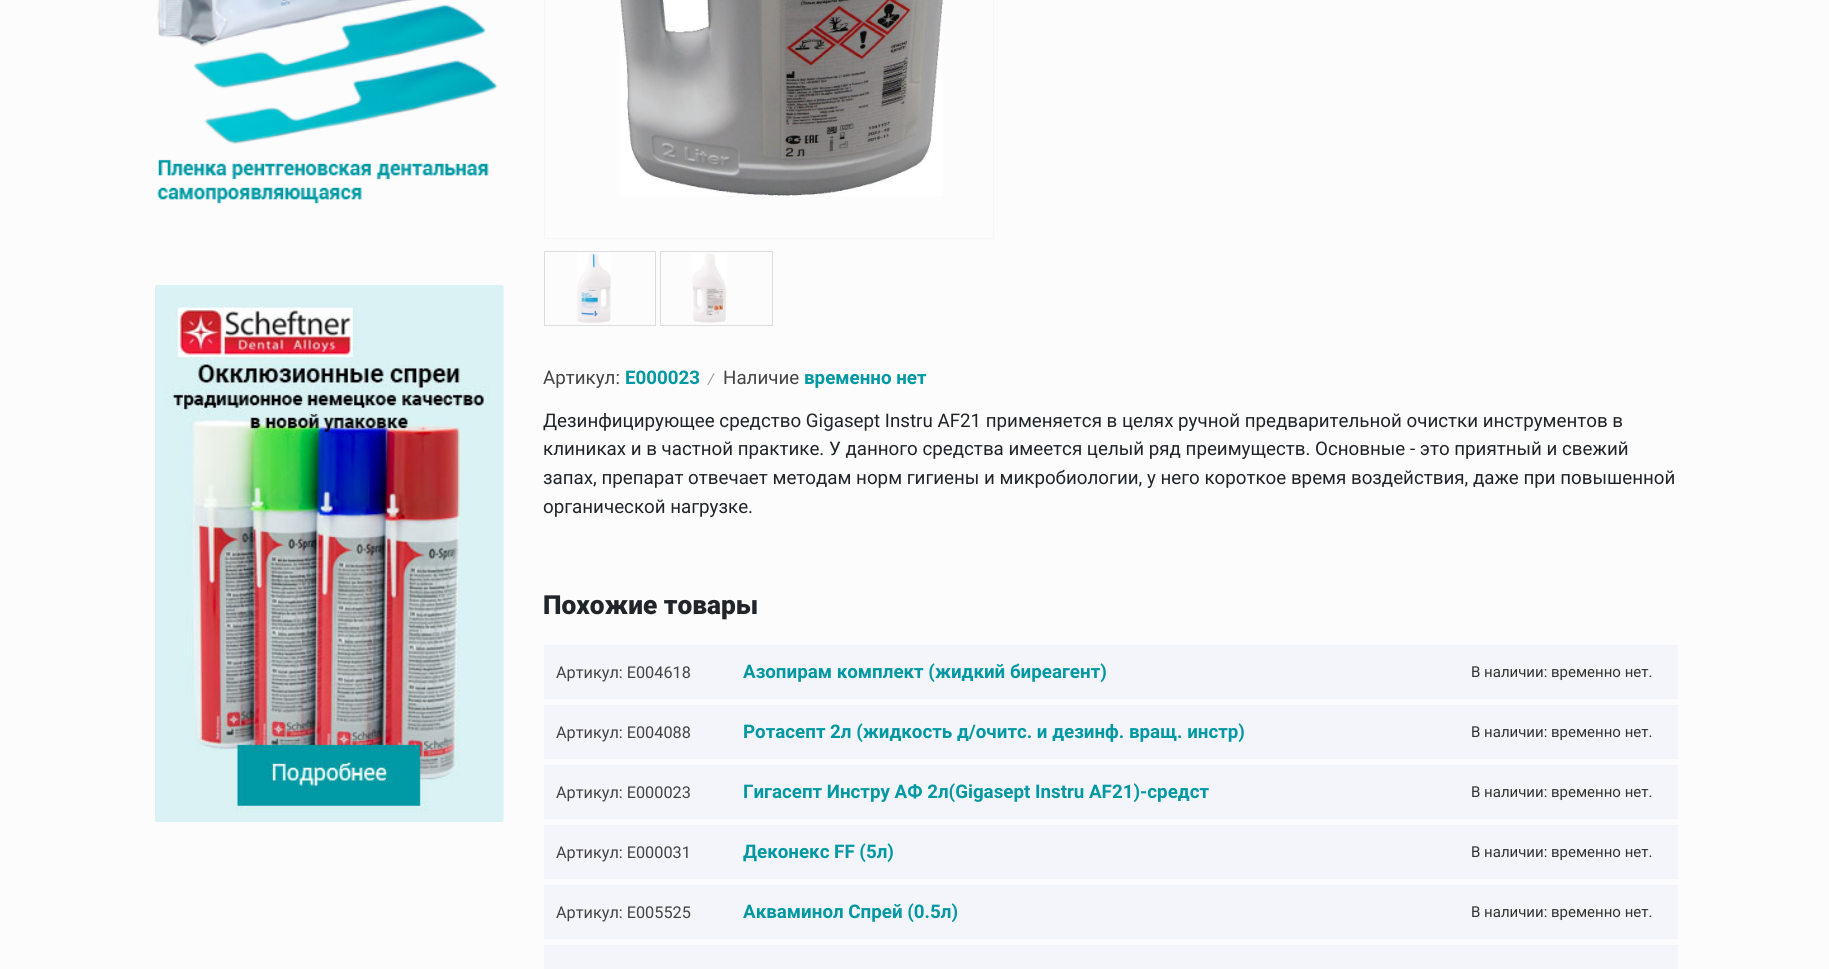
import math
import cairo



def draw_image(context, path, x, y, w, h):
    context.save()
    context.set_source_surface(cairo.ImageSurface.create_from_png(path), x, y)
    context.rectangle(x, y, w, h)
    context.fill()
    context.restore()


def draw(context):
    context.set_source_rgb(252 / 255, 252 / 255, 252 / 255)
    context.paint()
    draw_image(context, "images/1.png", 157, 0, 341, 204)
    draw_image(context, "images/2.png", 155, 285, 349, 537)
    context.rectangle(544.5, -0.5, 449, 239)
    context.set_source_rgb(246 / 255, 246 / 255, 246 / 255)
    context.set_line_width(1)
    context.stroke()
    draw_image(context, "images/3.png", 620, 0, 323, 196)
    context.rectangle(544.5, 251.5, 111, 74)
    context.set_source_rgb(221 / 255, 221 / 255, 221 / 255)
    context.stroke()
    draw_image(context, "images/4.png", 577, 253, 34, 70)
    context.rectangle(660.5, 251.5, 112, 74)
    context.stroke()
    draw_image(context, "images/5.png", 692, 254, 35, 69)
    context.set_source_rgb(244 / 255, 244 / 255, 251 / 255)
    context.rectangle(544, 645, 1134, 54)
    context.fill()
    context.rectangle(544, 705, 1134, 54)
    context.fill()
    context.rectangle(544, 765, 1134, 54)
    context.fill()
    context.rectangle(544, 825, 1134, 54)
    context.fill()
    context.rectangle(544, 885, 1134, 54)
    context.fill()
    context.rectangle(544, 945, 1134, 24)
    context.fill()
    context.select_font_face("Roboto")
    context.set_font_size(18.75)
    context.set_source_rgb(68 / 255, 68 / 255, 68 / 255)
    context.move_to(543, 384)
    context.show_text("Артикул:")
    context.select_font_face("Roboto", cairo.FontSlant.NORMAL, cairo.FontWeight.BOLD)
    context.set_source_rgb(0, 152 / 255, 162 / 255)
    context.move_to(625, 384)
    context.show_text("E000023")
    context.select_font_face("Roboto", cairo.FontSlant.ITALIC)
    context.set_font_size(15)
    context.set_source_rgb(153 / 255, 153 / 255, 153 / 255)
    context.move_to(708, 384)
    context.show_text("/")
    context.select_font_face("Roboto")
    context.set_font_size(18.75)
    context.set_source_rgb(68 / 255, 68 / 255, 68 / 255)
    context.move_to(723, 384)
    context.show_text("Наличие")
    context.select_font_face("Roboto", cairo.FontSlant.NORMAL, cairo.FontWeight.BOLD)
    context.set_source_rgb(0, 152 / 255, 162 / 255)
    context.move_to(804, 384)
    context.show_text("временно нет")
    context.select_font_face("Roboto")
    context.set_source_rgb(33 / 255, 37 / 255, 41 / 255)
    context.move_to(543, 427)
    context.show_text("Дезинфицирующее средство Gigasept Instru AF21 применяется в целях ручной предварительной очистки инструментов в")
    context.move_to(543, 455)
    context.show_text("клиниках и в частной практике. У данного средства имеется целый ряд преимуществ. Основные - это приятный и свежий")
    context.move_to(543, 484)
    context.show_text("запах, препарат отвечает методам норм гигиены и микробиологии, у него короткое время воздействия, даже при повышенной")
    context.move_to(543, 513)
    context.show_text("органической нагрузке.")
    context.select_font_face("Roboto Black")
    context.set_font_size(26.25)
    context.move_to(543, 614)
    context.show_text("Похожие товары")
    context.select_font_face("Roboto")
    context.set_font_size(16.25)
    context.set_source_rgb(68 / 255, 68 / 255, 68 / 255)
    context.move_to(556, 678)
    context.show_text("Артикул: E004618")
    context.select_font_face("Roboto", cairo.FontSlant.NORMAL, cairo.FontWeight.BOLD)
    context.set_font_size(18.75)
    context.set_source_rgb(0, 152 / 255, 162 / 255)
    context.move_to(743, 678)
    context.show_text("Азопирам комплект (жидкий биреагент)")
    context.select_font_face("Roboto")
    context.set_font_size(15)
    context.set_source_rgb(51 / 255, 51 / 255, 51 / 255)
    context.move_to(1471, 677)
    context.show_text("В наличии: временно нет.")
    context.set_font_size(16.25)
    context.set_source_rgb(68 / 255, 68 / 255, 68 / 255)
    context.move_to(556, 738)
    context.show_text("Артикул: E004088")
    context.select_font_face("Roboto", cairo.FontSlant.NORMAL, cairo.FontWeight.BOLD)
    context.set_font_size(18.75)
    context.set_source_rgb(0, 152 / 255, 162 / 255)
    context.move_to(743, 738)
    context.show_text("Ротасепт 2л (жидкость д/очитс. и дезинф. вращ. инстр)")
    context.select_font_face("Roboto")
    context.set_font_size(15)
    context.set_source_rgb(51 / 255, 51 / 255, 51 / 255)
    context.move_to(1471, 737)
    context.show_text("В наличии: временно нет.")
    context.set_font_size(16.25)
    context.set_source_rgb(68 / 255, 68 / 255, 68 / 255)
    context.move_to(556, 798)
    context.show_text("Артикул: E000023")
    context.select_font_face("Roboto", cairo.FontSlant.NORMAL, cairo.FontWeight.BOLD)
    context.set_font_size(18.75)
    context.set_source_rgb(0, 152 / 255, 162 / 255)
    context.move_to(743, 798)
    context.show_text("Гигасепт Инстру АФ 2л(Gigasept Instru AF21)-средст")
    context.select_font_face("Roboto")
    context.set_font_size(15)
    context.set_source_rgb(51 / 255, 51 / 255, 51 / 255)
    context.move_to(1471, 797)
    context.show_text("В наличии: временно нет.")
    context.set_font_size(16.25)
    context.set_source_rgb(68 / 255, 68 / 255, 68 / 255)
    context.move_to(556, 858)
    context.show_text("Артикул: E000031")
    context.select_font_face("Roboto", cairo.FontSlant.NORMAL, cairo.FontWeight.BOLD)
    context.set_font_size(18.75)
    context.set_source_rgb(0, 152 / 255, 162 / 255)
    context.move_to(743, 858)
    context.show_text("Деконекс FF (5л)")
    context.select_font_face("Roboto")
    context.set_font_size(15)
    context.set_source_rgb(51 / 255, 51 / 255, 51 / 255)
    context.move_to(1471, 857)
    context.show_text("В наличии: временно нет.")
    context.set_font_size(16.25)
    context.set_source_rgb(68 / 255, 68 / 255, 68 / 255)
    context.move_to(556, 918)
    context.show_text("Артикул: E005525")
    context.select_font_face("Roboto", cairo.FontSlant.NORMAL, cairo.FontWeight.BOLD)
    context.set_font_size(18.75)
    context.set_source_rgb(0, 152 / 255, 162 / 255)
    context.move_to(743, 918)
    context.show_text("Акваминол Спрей (0.5л)")
    context.select_font_face("Roboto")
    context.set_font_size(15)
    context.set_source_rgb(51 / 255, 51 / 255, 51 / 255)
    context.move_to(1471, 917)
    context.show_text("В наличии: временно нет.")


surface = cairo.ImageSurface(cairo.Format.RGB24, 1829, 969)
context = cairo.Context(surface)
options = cairo.FontOptions()
options.set_hint_metrics(cairo.HintMetrics.OFF)
options.set_hint_style(cairo.HintStyle.NONE)
context.set_font_options(options)
context.set_miter_limit(4)
draw(context)
surface.write_to_png("out.png")
